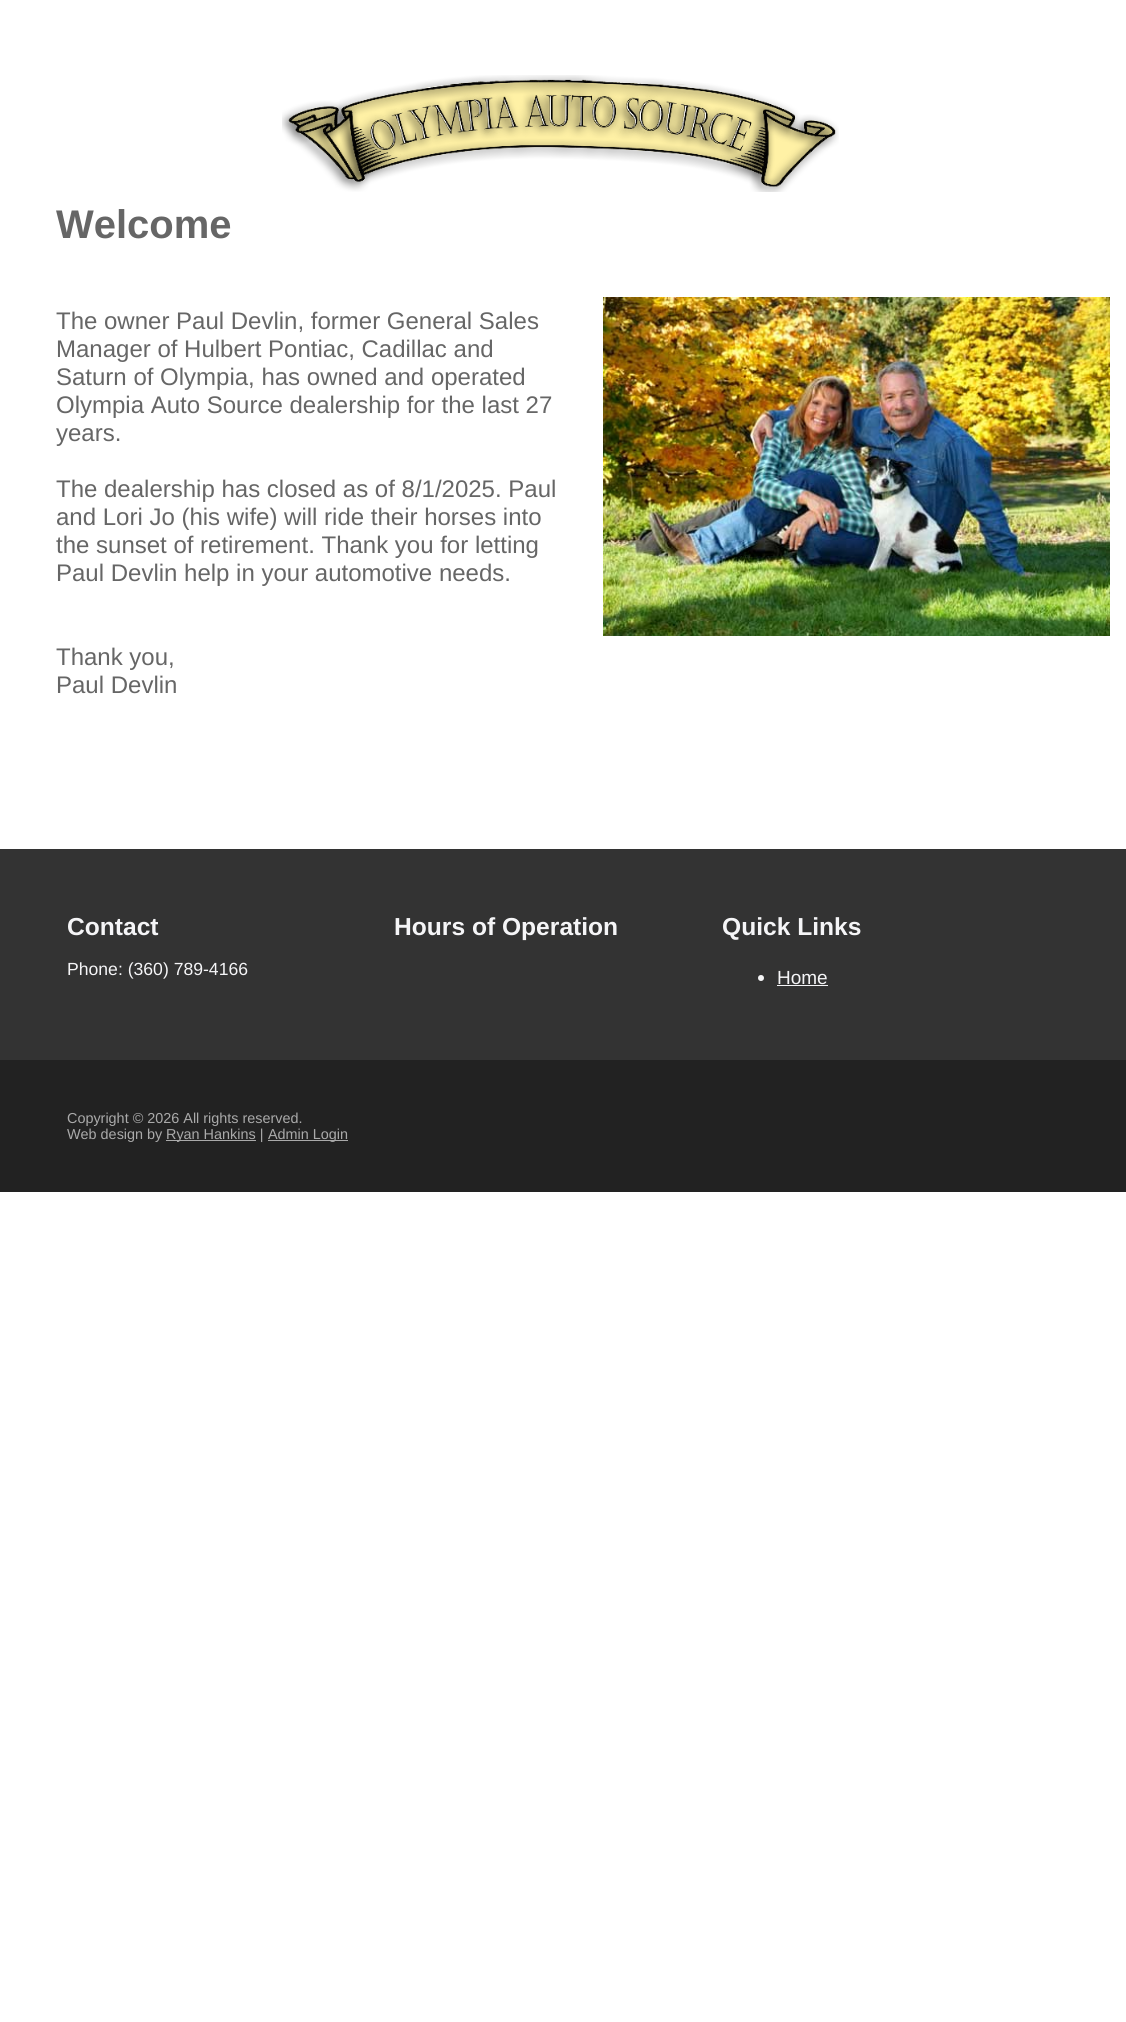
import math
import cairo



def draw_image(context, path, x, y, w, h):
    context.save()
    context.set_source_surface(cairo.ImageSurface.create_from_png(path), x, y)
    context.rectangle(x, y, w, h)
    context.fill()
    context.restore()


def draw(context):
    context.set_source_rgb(1, 1, 1)
    context.paint()
    draw_image(context, "images/1.png", 282, 75, 557, 117)
    draw_image(context, "images/2.png", 603, 297, 507, 339)
    context.set_source_rgb(51 / 255, 51 / 255, 51 / 255)
    context.rectangle(0, 849, 1126, 211)
    context.fill()
    context.set_source_rgb(245 / 255, 245 / 255, 247 / 255)
    context.arc(761, 978, 3, 0, 2 * math.pi)
    context.fill()
    context.rectangle(777, 985, 51, 1)
    context.fill()
    context.set_source_rgb(34 / 255, 34 / 255, 34 / 255)
    context.rectangle(0, 1060, 1126, 132)
    context.fill()
    context.set_source_rgb(170 / 255, 170 / 255, 170 / 255)
    context.rectangle(166, 1140, 90, 1)
    context.fill()
    context.rectangle(268, 1140, 80, 1)
    context.fill()
    context.select_font_face("Liberation Sans", cairo.FontSlant.NORMAL, cairo.FontWeight.BOLD)
    context.set_font_size(40)
    context.set_source_rgb(102 / 255, 102 / 255, 102 / 255)
    context.move_to(56, 238)
    context.show_text("Welcome")
    context.select_font_face("Liberation Sans")
    context.set_font_size(24)
    context.move_to(56, 329)
    context.show_text("The owner Paul Devlin, former General Sales")
    context.move_to(56, 357)
    context.show_text("Manager of Hulbert Pontiac, Cadillac and")
    context.move_to(56, 385)
    context.show_text("Saturn of Olympia, has owned and operated")
    context.move_to(56, 413)
    context.show_text("Olympia Auto Source dealership for the last 27")
    context.move_to(56, 441)
    context.show_text("years.")
    context.move_to(56, 497)
    context.show_text("The dealership has closed as of 8/1/2025. Paul")
    context.move_to(56, 525)
    context.show_text("and Lori Jo (his wife) will ride their horses into")
    context.move_to(56, 553)
    context.show_text("the sunset of retirement. Thank you for letting")
    context.move_to(56, 581)
    context.show_text("Paul Devlin help in your automotive needs.")
    context.move_to(56, 665)
    context.show_text("Thank you,")
    context.move_to(56, 693)
    context.show_text("Paul Devlin")
    context.select_font_face("Liberation Sans", cairo.FontSlant.NORMAL, cairo.FontWeight.BOLD)
    context.set_font_size(24.6)
    context.set_source_rgb(245 / 255, 245 / 255, 247 / 255)
    context.move_to(67, 935)
    context.show_text("Contact")
    context.select_font_face("Liberation Sans")
    context.set_font_size(17.6)
    context.move_to(67, 975)
    context.show_text("Phone: (360) 789-4166")
    context.select_font_face("Liberation Sans", cairo.FontSlant.NORMAL, cairo.FontWeight.BOLD)
    context.set_font_size(24.6)
    context.move_to(394, 935)
    context.show_text("Hours of Operation")
    context.move_to(722, 935)
    context.show_text("Quick Links")
    context.select_font_face("Liberation Sans")
    context.set_font_size(19)
    context.move_to(777, 984)
    context.show_text("Home")
    context.set_font_size(14.4)
    context.set_source_rgb(170 / 255, 170 / 255, 170 / 255)
    context.move_to(67, 1123)
    context.show_text("Copyright © 2026 All rights reserved.")
    context.move_to(67, 1139)
    context.show_text("Web design by")
    context.move_to(166, 1139)
    context.show_text("Ryan Hankins |")
    context.move_to(268, 1139)
    context.show_text("Admin Login")


surface = cairo.ImageSurface(cairo.Format.RGB24, 1126, 2022)
context = cairo.Context(surface)
options = cairo.FontOptions()
options.set_hint_metrics(cairo.HintMetrics.OFF)
options.set_hint_style(cairo.HintStyle.NONE)
context.set_font_options(options)
context.set_miter_limit(4)
draw(context)
surface.write_to_png("out.png")
